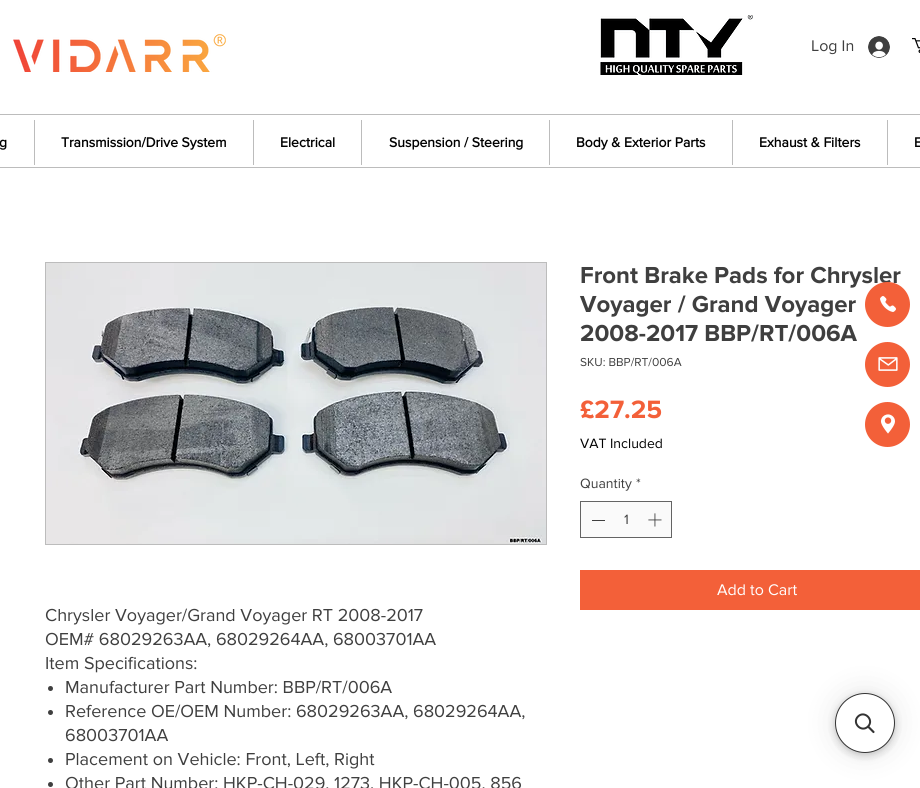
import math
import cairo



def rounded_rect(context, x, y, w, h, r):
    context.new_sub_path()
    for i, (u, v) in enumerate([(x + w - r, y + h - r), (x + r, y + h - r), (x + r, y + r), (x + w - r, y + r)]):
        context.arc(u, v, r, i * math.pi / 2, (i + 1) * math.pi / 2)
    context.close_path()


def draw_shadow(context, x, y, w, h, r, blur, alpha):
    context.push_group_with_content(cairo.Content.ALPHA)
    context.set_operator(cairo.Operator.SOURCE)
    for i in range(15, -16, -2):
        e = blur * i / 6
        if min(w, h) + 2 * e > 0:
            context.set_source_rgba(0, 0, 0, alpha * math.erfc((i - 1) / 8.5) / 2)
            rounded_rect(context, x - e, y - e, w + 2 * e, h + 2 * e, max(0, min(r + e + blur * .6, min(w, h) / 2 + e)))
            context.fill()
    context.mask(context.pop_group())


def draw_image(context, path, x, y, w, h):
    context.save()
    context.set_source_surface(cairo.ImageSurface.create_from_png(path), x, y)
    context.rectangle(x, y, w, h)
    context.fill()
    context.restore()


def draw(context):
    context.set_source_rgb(1, 1, 1)
    context.paint()
    draw_image(context, "images/1.png", 13, 34, 213, 38)
    draw_image(context, "images/2.png", 600, 15, 153, 60)
    draw_image(context, "images/3.png", 868, 36, 22, 22)
    draw_image(context, "images/4.png", 912, 38, 8, 15)
    context.set_source_rgb(188 / 255, 188 / 255, 188 / 255)
    context.rectangle(0, 114, 920, 1)
    context.fill()
    context.rectangle(34, 120, 1, 45)
    context.fill()
    context.rectangle(253, 120, 1, 45)
    context.fill()
    context.rectangle(361, 120, 1, 45)
    context.fill()
    context.rectangle(549, 120, 1, 45)
    context.fill()
    context.rectangle(732, 120, 1, 45)
    context.fill()
    context.rectangle(887, 120, 1, 45)
    context.fill()
    context.rectangle(0, 167, 920, 1)
    context.fill()
    context.set_source_rgb(250 / 255, 250 / 255, 250 / 255)
    context.rectangle(580.5, 501.5, 91, 36)
    context.fill_preserve()
    context.set_source_rgb(100 / 255, 100 / 255, 100 / 255)
    context.set_line_width(1)
    context.stroke()
    context.set_source_rgb(63 / 255, 63 / 255, 63 / 255)
    context.rectangle(592, 520, 13, 1)
    context.fill()
    draw_image(context, "images/5.png", 648, 513, 14, 14)
    context.set_source_rgb(243 / 255, 96 / 255, 57 / 255)
    context.rectangle(580, 570, 340, 40)
    context.fill()
    context.rectangle(45.5, 262.5, 501, 282)
    context.set_source_rgb(188 / 255, 188 / 255, 188 / 255)
    context.stroke()
    draw_image(context, "images/6.png", 46, 263, 500, 281)
    context.set_source_rgb(63 / 255, 63 / 255, 63 / 255)
    context.arc(50.5, 688.5, 2.5, 0, 2 * math.pi)
    context.fill()
    context.arc(50.5, 712.5, 2.5, 0, 2 * math.pi)
    context.fill()
    context.arc(50.5, 760.5, 2.5, 0, 2 * math.pi)
    context.fill()
    context.arc(50.5, 784.5, 2.5, 0, 2 * math.pi)
    context.fill()
    context.set_source_rgb(243 / 255, 96 / 255, 57 / 255)
    context.arc(887.5, 364.5, 22.5, 0, 2 * math.pi)
    context.fill()
    draw_image(context, "images/8.png", 878, 357, 20, 14)
    context.arc(887.5, 424.5, 22.5, 0, 2 * math.pi)
    context.fill()
    draw_image(context, "images/9.png", 881, 414, 14, 20)
    context.set_source_rgb(0, 0, 0)
    draw_shadow(context, 835, 697, 60, 60, 30, 4, 0.05)
    draw_shadow(context, 835, 695, 60, 60, 30, 4, 0.15)
    draw_shadow(context, 835, 693, 60, 60, 30, 15, 0.1)
    context.set_source_rgb(1, 1, 1)
    context.arc(865, 723, 29.5, 0, 2 * math.pi)
    context.fill_preserve()
    context.set_source_rgb(51 / 255, 51 / 255, 51 / 255)
    context.stroke()
    context.new_path()
    context.move_to(858, 716.5)
    context.curve_to(864.5, 710, 874.5, 720, 868, 726.5)
    context.curve_to(861.5, 733, 851.5, 723, 858, 716.5)
    context.close_path()
    context.set_line_width(2)
    context.stroke()
    context.new_path()
    context.move_to(867, 727)
    context.line_to(868.5, 725.5)
    context.line_to(874.5, 731.5)
    context.curve_to(875, 732.5, 873.5, 733.5, 873, 733)
    context.close_path()
    context.fill()
    context.select_font_face("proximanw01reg")
    context.set_font_size(16)
    context.set_source_rgb(63 / 255, 63 / 255, 63 / 255)
    context.move_to(811, 51)
    context.show_text("Log In")
    context.select_font_face("proximanw01reg", cairo.FontSlant.NORMAL, cairo.FontWeight.BOLD)
    context.set_font_size(14)
    context.set_source_rgb(0, 0, 0)
    context.move_to(-1, 147)
    context.show_text("g")
    context.move_to(61, 147)
    context.show_text("Transmission/Drive System")
    context.move_to(280, 147)
    context.show_text("Electrical")
    context.move_to(389, 147)
    context.show_text("Suspension / Steering")
    context.move_to(576, 147)
    context.show_text("Body & Exterior Parts")
    context.move_to(759, 147)
    context.show_text("Exhaust & Filters")
    context.move_to(914, 147)
    context.show_text("E")
    context.select_font_face("Proxima Nova", cairo.FontSlant.NORMAL, cairo.FontWeight.BOLD)
    context.set_font_size(24)
    context.set_source_rgb(63 / 255, 63 / 255, 63 / 255)
    context.move_to(580, 283)
    context.show_text("Front Brake Pads for Chrysler")
    context.move_to(580, 312)
    context.show_text("Voyager / Grand Voyager")
    context.move_to(580, 341)
    context.show_text("2008-2017 BBP/RT/006A")
    context.select_font_face("proximanw01reg")
    context.set_font_size(12)
    context.move_to(580, 366)
    context.show_text("SKU: BBP/RT/006A")
    context.select_font_face("Proxima Nova", cairo.FontSlant.NORMAL, cairo.FontWeight.BOLD)
    context.set_font_size(26)
    context.set_source_rgb(243 / 255, 96 / 255, 57 / 255)
    context.move_to(580, 418)
    context.show_text("£27.25")
    context.select_font_face("proximanw01reg")
    context.set_font_size(14)
    context.set_source_rgb(0, 0, 0)
    context.move_to(580, 448)
    context.show_text("VAT Included")
    context.set_source_rgb(63 / 255, 63 / 255, 63 / 255)
    context.move_to(580, 488)
    context.show_text("Quantity")
    context.move_to(636, 488)
    context.show_text("*")
    context.move_to(624, 524)
    context.show_text("1")
    context.set_font_size(16)
    context.set_source_rgb(1, 1, 1)
    context.move_to(717, 595)
    context.show_text("Add to Cart")
    context.set_font_size(18)
    context.set_source_rgb(63 / 255, 63 / 255, 63 / 255)
    context.move_to(45, 621)
    context.show_text("Chrysler Voyager/Grand Voyager RT 2008-2017")
    context.move_to(45, 645)
    context.show_text("OEM# 68029263AA, 68029264AA, 68003701AA")
    context.move_to(45, 669)
    context.show_text("Item Specifications:")
    context.move_to(65, 693)
    context.show_text("Manufacturer Part Number: BBP/RT/006A")
    context.move_to(65, 717)
    context.show_text("Reference OE/OEM Number: 68029263AA, 68029264AA,")
    context.move_to(65, 741)
    context.show_text("68003701AA")
    context.move_to(65, 765)
    context.show_text("Placement on Vehicle: Front, Left, Right")
    context.move_to(65, 789)
    context.show_text("Other Part Number: HKP-CH-029, 1273, HKP-CH-005, 856")
    context.set_source_rgb(243 / 255, 96 / 255, 57 / 255)
    context.new_path()
    context.arc(887.5, 304.5, 22.5, 0, 2 * math.pi)
    context.fill()
    draw_image(context, "images/7.png", 880, 296, 16, 16)


surface = cairo.ImageSurface(cairo.Format.RGB24, 920, 788)
context = cairo.Context(surface)
options = cairo.FontOptions()
options.set_hint_metrics(cairo.HintMetrics.OFF)
options.set_hint_style(cairo.HintStyle.NONE)
context.set_font_options(options)
context.set_miter_limit(4)
draw(context)
surface.write_to_png("out.png")
